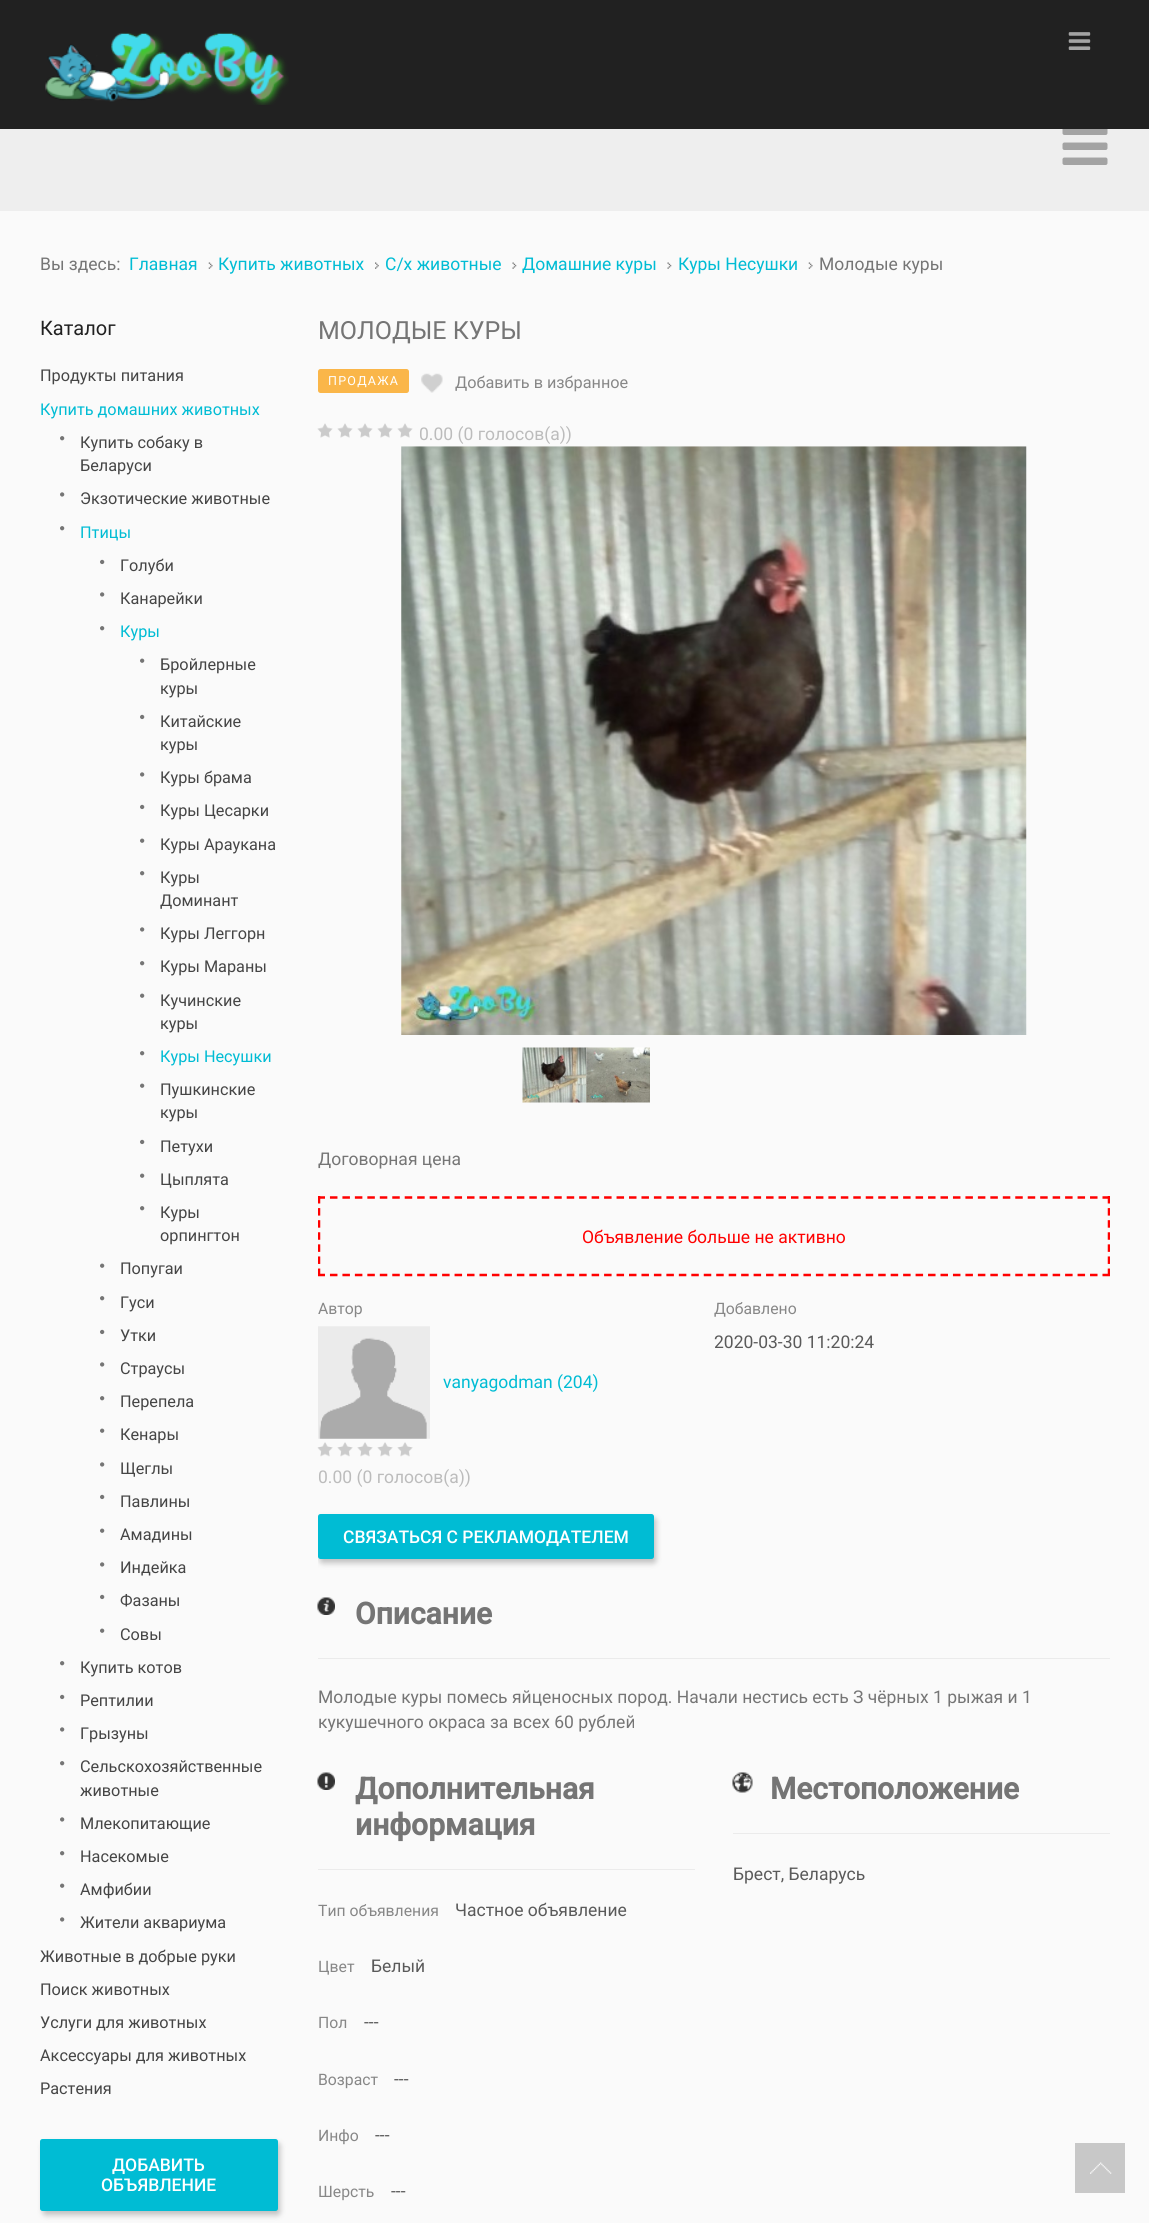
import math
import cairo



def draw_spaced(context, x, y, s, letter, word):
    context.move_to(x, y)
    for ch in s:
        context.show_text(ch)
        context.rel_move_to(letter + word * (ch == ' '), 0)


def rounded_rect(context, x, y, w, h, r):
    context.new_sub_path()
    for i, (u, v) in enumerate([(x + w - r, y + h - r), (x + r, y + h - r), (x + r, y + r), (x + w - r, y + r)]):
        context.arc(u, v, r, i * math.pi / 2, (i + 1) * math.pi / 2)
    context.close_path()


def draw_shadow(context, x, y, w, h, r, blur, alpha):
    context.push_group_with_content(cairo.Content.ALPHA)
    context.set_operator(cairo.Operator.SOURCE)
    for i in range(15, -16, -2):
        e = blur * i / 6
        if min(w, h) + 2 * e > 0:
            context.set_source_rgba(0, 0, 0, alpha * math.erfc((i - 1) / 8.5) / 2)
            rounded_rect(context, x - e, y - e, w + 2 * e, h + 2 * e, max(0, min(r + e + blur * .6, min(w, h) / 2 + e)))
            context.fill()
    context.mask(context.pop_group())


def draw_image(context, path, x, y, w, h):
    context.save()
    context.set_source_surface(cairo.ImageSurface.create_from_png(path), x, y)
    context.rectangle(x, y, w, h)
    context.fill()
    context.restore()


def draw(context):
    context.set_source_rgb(250 / 255, 250 / 255, 250 / 255)
    context.paint()
    context.set_source_rgb(33 / 255, 33 / 255, 33 / 255)
    context.rectangle(0, 0, 1149, 129)
    context.fill()
    draw_image(context, "images/1.png", 45, 32, 244, 73)
    draw_image(context, "images/2.png", 1068, 32, 23, 18)
    context.set_source_rgb(238 / 255, 238 / 255, 238 / 255)
    context.rectangle(0, 129, 1149, 82)
    context.fill()
    draw_image(context, "images/3.png", 1062, 129, 46, 36)
    draw_image(context, "images/4.png", 208, 262, 5, 7)
    draw_image(context, "images/5.png", 375, 262, 4, 7)
    draw_image(context, "images/6.png", 512, 262, 5, 7)
    draw_image(context, "images/6.png", 667, 262, 5, 7)
    draw_image(context, "images/4.png", 808, 262, 5, 7)
    draw_image(context, "images/7.png", 60, 436, 5, 5)
    draw_image(context, "images/8.png", 60, 492, 5, 5)
    draw_image(context, "images/7.png", 60, 526, 5, 5)
    draw_image(context, "images/9.png", 100, 559, 5, 6)
    draw_image(context, "images/8.png", 100, 592, 5, 5)
    draw_image(context, "images/7.png", 100, 626, 5, 5)
    draw_image(context, "images/10.png", 140, 658, 5, 5)
    draw_image(context, "images/9.png", 140, 714, 5, 6)
    draw_image(context, "images/8.png", 140, 772, 5, 5)
    draw_image(context, "images/9.png", 140, 804, 5, 6)
    draw_image(context, "images/10.png", 140, 838, 5, 5)
    draw_image(context, "images/7.png", 140, 871, 5, 5)
    draw_image(context, "images/8.png", 140, 927, 5, 5)
    draw_image(context, "images/7.png", 140, 961, 5, 5)
    draw_image(context, "images/10.png", 140, 993, 5, 5)
    draw_image(context, "images/7.png", 140, 1051, 5, 5)
    draw_image(context, "images/10.png", 140, 1083, 5, 5)
    draw_image(context, "images/9.png", 140, 1139, 5, 6)
    draw_image(context, "images/10.png", 140, 1173, 5, 5)
    draw_image(context, "images/7.png", 140, 1206, 5, 5)
    draw_image(context, "images/10.png", 100, 1263, 5, 5)
    draw_image(context, "images/7.png", 100, 1296, 5, 5)
    draw_image(context, "images/9.png", 100, 1329, 5, 6)
    draw_image(context, "images/8.png", 100, 1362, 5, 5)
    draw_image(context, "images/7.png", 100, 1396, 5, 5)
    draw_image(context, "images/10.png", 100, 1428, 5, 5)
    draw_image(context, "images/8.png", 100, 1462, 5, 5)
    draw_image(context, "images/9.png", 100, 1494, 5, 6)
    draw_image(context, "images/10.png", 100, 1528, 5, 5)
    draw_image(context, "images/8.png", 100, 1562, 5, 5)
    draw_image(context, "images/9.png", 100, 1594, 5, 6)
    draw_image(context, "images/10.png", 100, 1628, 5, 5)
    draw_image(context, "images/7.png", 60, 1661, 5, 5)
    draw_image(context, "images/9.png", 60, 1694, 5, 6)
    draw_image(context, "images/8.png", 60, 1727, 5, 5)
    draw_image(context, "images/7.png", 60, 1761, 5, 5)
    draw_image(context, "images/8.png", 60, 1817, 5, 5)
    draw_image(context, "images/7.png", 60, 1851, 5, 5)
    draw_image(context, "images/10.png", 60, 1883, 5, 5)
    draw_image(context, "images/8.png", 60, 1917, 5, 5)
    context.set_source_rgb(0, 0, 0)
    draw_shadow(context, 43, 2143, 237, 72, 3, 3, 0.24)
    context.set_source_rgb(0, 188 / 255, 212 / 255)
    rounded_rect(context, 40, 2139, 238, 72, 2.5)
    context.fill()
    context.set_source_rgb(250 / 255, 182 / 255, 73 / 255)
    rounded_rect(context, 318, 369, 91, 24, 2.5)
    context.fill()
    draw_image(context, "images/11.png", 421, 373, 22, 20)
    draw_image(context, "images/12.png", 317, 423, 16, 15)
    draw_image(context, "images/12.png", 337, 423, 16, 15)
    draw_image(context, "images/13.png", 357, 423, 16, 15)
    draw_image(context, "images/12.png", 377, 423, 16, 15)
    draw_image(context, "images/12.png", 397, 423, 16, 15)
    draw_image(context, "images/14.png", 401, 446, 626, 589)
    draw_image(context, "images/15.png", 522, 1047, 65, 56)
    draw_image(context, "images/16.png", 586, 1047, 64, 56)
    context.save()
    context.rectangle(318, 446, 792, 1150)
    context.clip()
    context.new_path()
    context.move_to(317.5, 1197.5)
    context.line_to(1110, 1197.5)
    context.set_source_rgb(1, 0, 0)
    context.set_line_width(2.5)
    context.set_dash([7.5, 4.96])
    context.stroke()
    context.new_path()
    context.move_to(1109, 1196)
    context.line_to(1109, 1276)
    context.set_dash([7.5, 4.59])
    context.stroke()
    context.new_path()
    context.move_to(317.5, 1275)
    context.line_to(1110, 1275)
    context.set_dash([7.5, 4.96])
    context.stroke()
    context.new_path()
    context.move_to(319, 1196)
    context.line_to(319, 1276)
    context.set_dash([7.5, 4.59])
    context.stroke()
    context.restore()
    draw_image(context, "images/17.png", 318, 1326, 112, 113)
    draw_image(context, "images/18.png", 317, 1442, 16, 15)
    draw_image(context, "images/19.png", 337, 1442, 16, 15)
    draw_image(context, "images/20.png", 357, 1442, 16, 15)
    draw_image(context, "images/19.png", 377, 1442, 16, 15)
    draw_image(context, "images/19.png", 397, 1442, 16, 15)
    context.save()
    context.rectangle(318, 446, 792, 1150)
    context.clip()
    context.set_source_rgb(0, 0, 0)
    draw_shadow(context, 320, 1518, 336, 45, 3, 3, 0.24)
    context.restore()
    context.set_source_rgb(0, 188 / 255, 212 / 255)
    rounded_rect(context, 318, 1514, 336, 45, 2.5)
    context.fill()
    draw_image(context, "images/21.png", 317, 1597, 18, 18)
    context.set_source_rgb(235 / 255, 235 / 255, 235 / 255)
    context.rectangle(318, 1658, 792, 1)
    context.fill()
    draw_image(context, "images/22.png", 317, 1772, 18, 18)
    context.rectangle(318, 1869, 377, 1)
    context.fill()
    draw_image(context, "images/23.png", 732, 1772, 21, 21)
    context.rectangle(733, 1833, 377, 1)
    context.fill()
    context.set_source_rgb(200 / 255, 200 / 255, 200 / 255)
    context.rectangle(1075, 2143, 50, 50)
    context.fill()
    draw_image(context, "images/24.png", 1090, 2162, 22, 12)
    context.select_font_face("Roboto")
    context.set_font_size(17.5)
    context.set_source_rgb(117 / 255, 117 / 255, 117 / 255)
    context.move_to(40, 270)
    context.show_text("Вы здесь:")
    context.set_source_rgb(0, 188 / 255, 212 / 255)
    context.move_to(129, 270)
    context.show_text("Главная")
    context.move_to(218, 270)
    context.show_text("Купить животных")
    context.move_to(385, 270)
    context.show_text("С/х животные")
    context.move_to(522, 270)
    context.show_text("Домашние куры")
    context.move_to(678, 270)
    context.show_text("Куры Несушки")
    context.set_source_rgb(117 / 255, 117 / 255, 117 / 255)
    context.move_to(819, 270)
    context.show_text("Молодые куры")
    context.set_font_size(20)
    context.set_source_rgb(33 / 255, 33 / 255, 33 / 255)
    context.move_to(40, 335)
    context.show_text("Каталог")
    context.set_font_size(16.25)
    context.set_source_rgb(69 / 255, 69 / 255, 69 / 255)
    context.move_to(40, 381)
    context.show_text("Продукты питания")
    context.set_source_rgb(0, 188 / 255, 212 / 255)
    context.move_to(40, 415)
    context.show_text("Купить домашних животных")
    context.set_source_rgb(69 / 255, 69 / 255, 69 / 255)
    context.move_to(80, 448)
    context.show_text("Купить собаку в")
    context.move_to(80, 471)
    context.show_text("Беларуси")
    context.move_to(80, 504)
    context.show_text("Экзотические животные")
    context.set_source_rgb(0, 188 / 255, 212 / 255)
    context.move_to(80, 538)
    context.show_text("Птицы")
    context.set_source_rgb(69 / 255, 69 / 255, 69 / 255)
    context.move_to(120, 571)
    context.show_text("Голуби")
    context.move_to(120, 604)
    context.show_text("Канарейки")
    context.set_source_rgb(0, 188 / 255, 212 / 255)
    context.move_to(120, 637)
    context.show_text("Куры")
    context.set_source_rgb(69 / 255, 69 / 255, 69 / 255)
    context.move_to(160, 670)
    context.show_text("Бройлерные")
    context.move_to(160, 694)
    context.show_text("куры")
    context.move_to(160, 727)
    context.show_text("Китайские")
    context.move_to(160, 750)
    context.show_text("куры")
    context.move_to(160, 783)
    context.show_text("Куры брама")
    context.move_to(160, 816)
    context.show_text("Куры Цесарки")
    context.move_to(160, 850)
    context.show_text("Куры Араукана")
    context.move_to(160, 883)
    context.show_text("Куры")
    context.move_to(160, 906)
    context.show_text("Доминант")
    context.move_to(160, 939)
    context.show_text("Куры Леггорн")
    context.move_to(160, 972)
    context.show_text("Куры Мараны")
    context.move_to(160, 1006)
    context.show_text("Кучинские")
    context.move_to(160, 1029)
    context.show_text("куры")
    context.set_source_rgb(0, 188 / 255, 212 / 255)
    context.move_to(160, 1062)
    context.show_text("Куры Несушки")
    context.set_source_rgb(69 / 255, 69 / 255, 69 / 255)
    context.move_to(160, 1095)
    context.show_text("Пушкинские")
    context.move_to(160, 1118)
    context.show_text("куры")
    context.move_to(160, 1152)
    context.show_text("Петухи")
    context.move_to(160, 1185)
    context.show_text("Цыплята")
    context.move_to(160, 1218)
    context.show_text("Куры")
    context.move_to(160, 1241)
    context.show_text("орпингтон")
    context.move_to(120, 1274)
    context.show_text("Попугаи")
    context.move_to(120, 1308)
    context.show_text("Гуси")
    context.move_to(120, 1341)
    context.show_text("Утки")
    context.move_to(120, 1374)
    context.show_text("Страусы")
    context.move_to(120, 1407)
    context.show_text("Перепела")
    context.move_to(120, 1440)
    context.show_text("Кенары")
    context.move_to(120, 1474)
    context.show_text("Щеглы")
    context.move_to(120, 1507)
    context.show_text("Павлины")
    context.move_to(120, 1540)
    context.show_text("Амадины")
    context.move_to(120, 1573)
    context.show_text("Индейка")
    context.move_to(120, 1606)
    context.show_text("Фазаны")
    context.move_to(120, 1640)
    context.show_text("Совы")
    context.move_to(80, 1673)
    context.show_text("Купить котов")
    context.move_to(80, 1706)
    context.show_text("Рептилии")
    context.move_to(80, 1739)
    context.show_text("Грызуны")
    context.move_to(80, 1772)
    context.show_text("Сельскохозяйственные")
    context.move_to(80, 1796)
    context.show_text("животные")
    context.move_to(80, 1829)
    context.show_text("Млекопитающие")
    context.move_to(80, 1862)
    context.show_text("Насекомые")
    context.move_to(80, 1895)
    context.show_text("Амфибии")
    context.move_to(80, 1928)
    context.show_text("Жители аквариума")
    context.move_to(40, 1962)
    context.show_text("Животные в добрые руки")
    context.move_to(40, 1995)
    context.show_text("Поиск животных")
    context.move_to(40, 2028)
    context.show_text("Услуги для животных")
    context.move_to(40, 2061)
    context.show_text("Аксессуары для животных")
    context.move_to(40, 2094)
    context.show_text("Растения")
    context.select_font_face("Roboto Medium")
    context.set_font_size(17.5)
    context.set_source_rgb(1, 1, 1)
    context.move_to(112, 2171)
    context.show_text("ДОБАВИТЬ")
    context.move_to(101, 2191)
    context.show_text("ОБЪЯВЛЕНИЕ")
    context.select_font_face("Roboto")
    context.set_font_size(25)
    context.set_source_rgb(117 / 255, 117 / 255, 117 / 255)
    context.move_to(318, 339)
    context.show_text("МОЛОДЫЕ КУРЫ")
    context.set_font_size(12.5)
    context.set_source_rgb(1, 1, 1)
    draw_spaced(context, 328, 385, "ПРОДАЖА", 1.25, 0)
    context.set_font_size(16.25)
    context.set_source_rgb(135 / 255, 135 / 255, 135 / 255)
    context.move_to(455, 388)
    context.show_text("Добавить в избранное")
    context.set_font_size(17.5)
    context.set_source_rgb(188 / 255, 188 / 255, 188 / 255)
    context.move_to(419, 440)
    context.show_text("0.00 (0 голосов(а))")
    context.set_source_rgb(117 / 255, 117 / 255, 117 / 255)
    context.move_to(318, 1165)
    context.show_text("Договорная цена")
    context.set_source_rgb(1, 0, 0)
    context.move_to(582, 1243)
    context.show_text("Объявление больше не активно")
    context.set_font_size(15.75)
    context.set_source_rgb(135 / 255, 135 / 255, 135 / 255)
    context.move_to(318, 1314)
    context.show_text("Автор")
    context.set_font_size(17.5)
    context.set_source_rgb(0, 188 / 255, 212 / 255)
    context.move_to(443, 1388)
    context.show_text("vanyagodman (204)")
    context.set_source_rgb(188 / 255, 188 / 255, 188 / 255)
    context.move_to(318, 1483)
    context.show_text("0.00 (0 голосов(а))")
    context.set_font_size(15.75)
    context.set_source_rgb(135 / 255, 135 / 255, 135 / 255)
    context.move_to(714, 1314)
    context.show_text("Добавлено")
    context.set_font_size(17.5)
    context.set_source_rgb(90 / 255, 90 / 255, 90 / 255)
    context.move_to(714, 1348)
    context.show_text("2020-03-30 11:20:24")
    context.select_font_face("Roboto Medium")
    context.set_source_rgb(1, 1, 1)
    context.move_to(343, 1543)
    context.show_text("СВЯЗАТЬСЯ С РЕКЛАМОДАТЕЛЕМ")
    context.select_font_face("Roboto", cairo.FontSlant.NORMAL, cairo.FontWeight.BOLD)
    context.set_font_size(30)
    context.set_source_rgb(117 / 255, 117 / 255, 117 / 255)
    context.move_to(355, 1624)
    context.show_text("Описание")
    context.select_font_face("Roboto")
    context.set_font_size(17.5)
    context.move_to(318, 1703)
    context.show_text("Молодые куры помесь яйценосных пород. Начали нестись есть З чёрных 1 рыжая и 1")
    context.move_to(318, 1728)
    context.show_text("кукушечного окраса за всех 60 рублей")
    context.select_font_face("Roboto", cairo.FontSlant.NORMAL, cairo.FontWeight.BOLD)
    context.set_font_size(30)
    context.move_to(355, 1799)
    context.show_text("Дополнительная")
    context.move_to(355, 1835)
    context.show_text("информация")
    context.select_font_face("Roboto")
    context.set_font_size(15.75)
    context.set_source_rgb(135 / 255, 135 / 255, 135 / 255)
    context.move_to(318, 1916)
    context.show_text("Тип объявления")
    context.set_font_size(17.5)
    context.set_source_rgb(90 / 255, 90 / 255, 90 / 255)
    context.move_to(455, 1916)
    context.show_text("Частное объявление")
    context.set_font_size(15.75)
    context.set_source_rgb(135 / 255, 135 / 255, 135 / 255)
    context.move_to(318, 1972)
    context.show_text("Цвет")
    context.set_font_size(17.5)
    context.set_source_rgb(90 / 255, 90 / 255, 90 / 255)
    context.move_to(371, 1972)
    context.show_text("Белый")
    context.set_font_size(15.75)
    context.set_source_rgb(135 / 255, 135 / 255, 135 / 255)
    context.move_to(318, 2028)
    context.show_text("Пол")
    context.set_font_size(17.5)
    context.set_source_rgb(90 / 255, 90 / 255, 90 / 255)
    context.move_to(364, 2028)
    context.show_text("---")
    context.set_font_size(15.75)
    context.set_source_rgb(135 / 255, 135 / 255, 135 / 255)
    context.move_to(318, 2085)
    context.show_text("Возраст")
    context.set_font_size(17.5)
    context.set_source_rgb(90 / 255, 90 / 255, 90 / 255)
    context.move_to(394, 2085)
    context.show_text("---")
    context.set_font_size(15.75)
    context.set_source_rgb(135 / 255, 135 / 255, 135 / 255)
    context.move_to(318, 2141)
    context.show_text("Инфо")
    context.set_font_size(17.5)
    context.set_source_rgb(90 / 255, 90 / 255, 90 / 255)
    context.move_to(375, 2141)
    context.show_text("---")
    context.set_font_size(15.75)
    context.set_source_rgb(135 / 255, 135 / 255, 135 / 255)
    context.move_to(318, 2197)
    context.show_text("Шерсть")
    context.set_font_size(17.5)
    context.set_source_rgb(90 / 255, 90 / 255, 90 / 255)
    context.move_to(391, 2197)
    context.show_text("---")
    context.select_font_face("Roboto", cairo.FontSlant.NORMAL, cairo.FontWeight.BOLD)
    context.set_font_size(30)
    context.set_source_rgb(117 / 255, 117 / 255, 117 / 255)
    context.move_to(770, 1799)
    context.show_text("Местоположение")
    context.select_font_face("Roboto")
    context.set_font_size(17.5)
    context.set_source_rgb(90 / 255, 90 / 255, 90 / 255)
    context.move_to(733, 1880)
    context.show_text("Брест, Беларусь")


surface = cairo.ImageSurface(cairo.Format.RGB24, 1149, 2223)
context = cairo.Context(surface)
options = cairo.FontOptions()
options.set_hint_metrics(cairo.HintMetrics.OFF)
options.set_hint_style(cairo.HintStyle.NONE)
context.set_font_options(options)
context.set_miter_limit(4)
draw(context)
surface.write_to_png("out.png")
